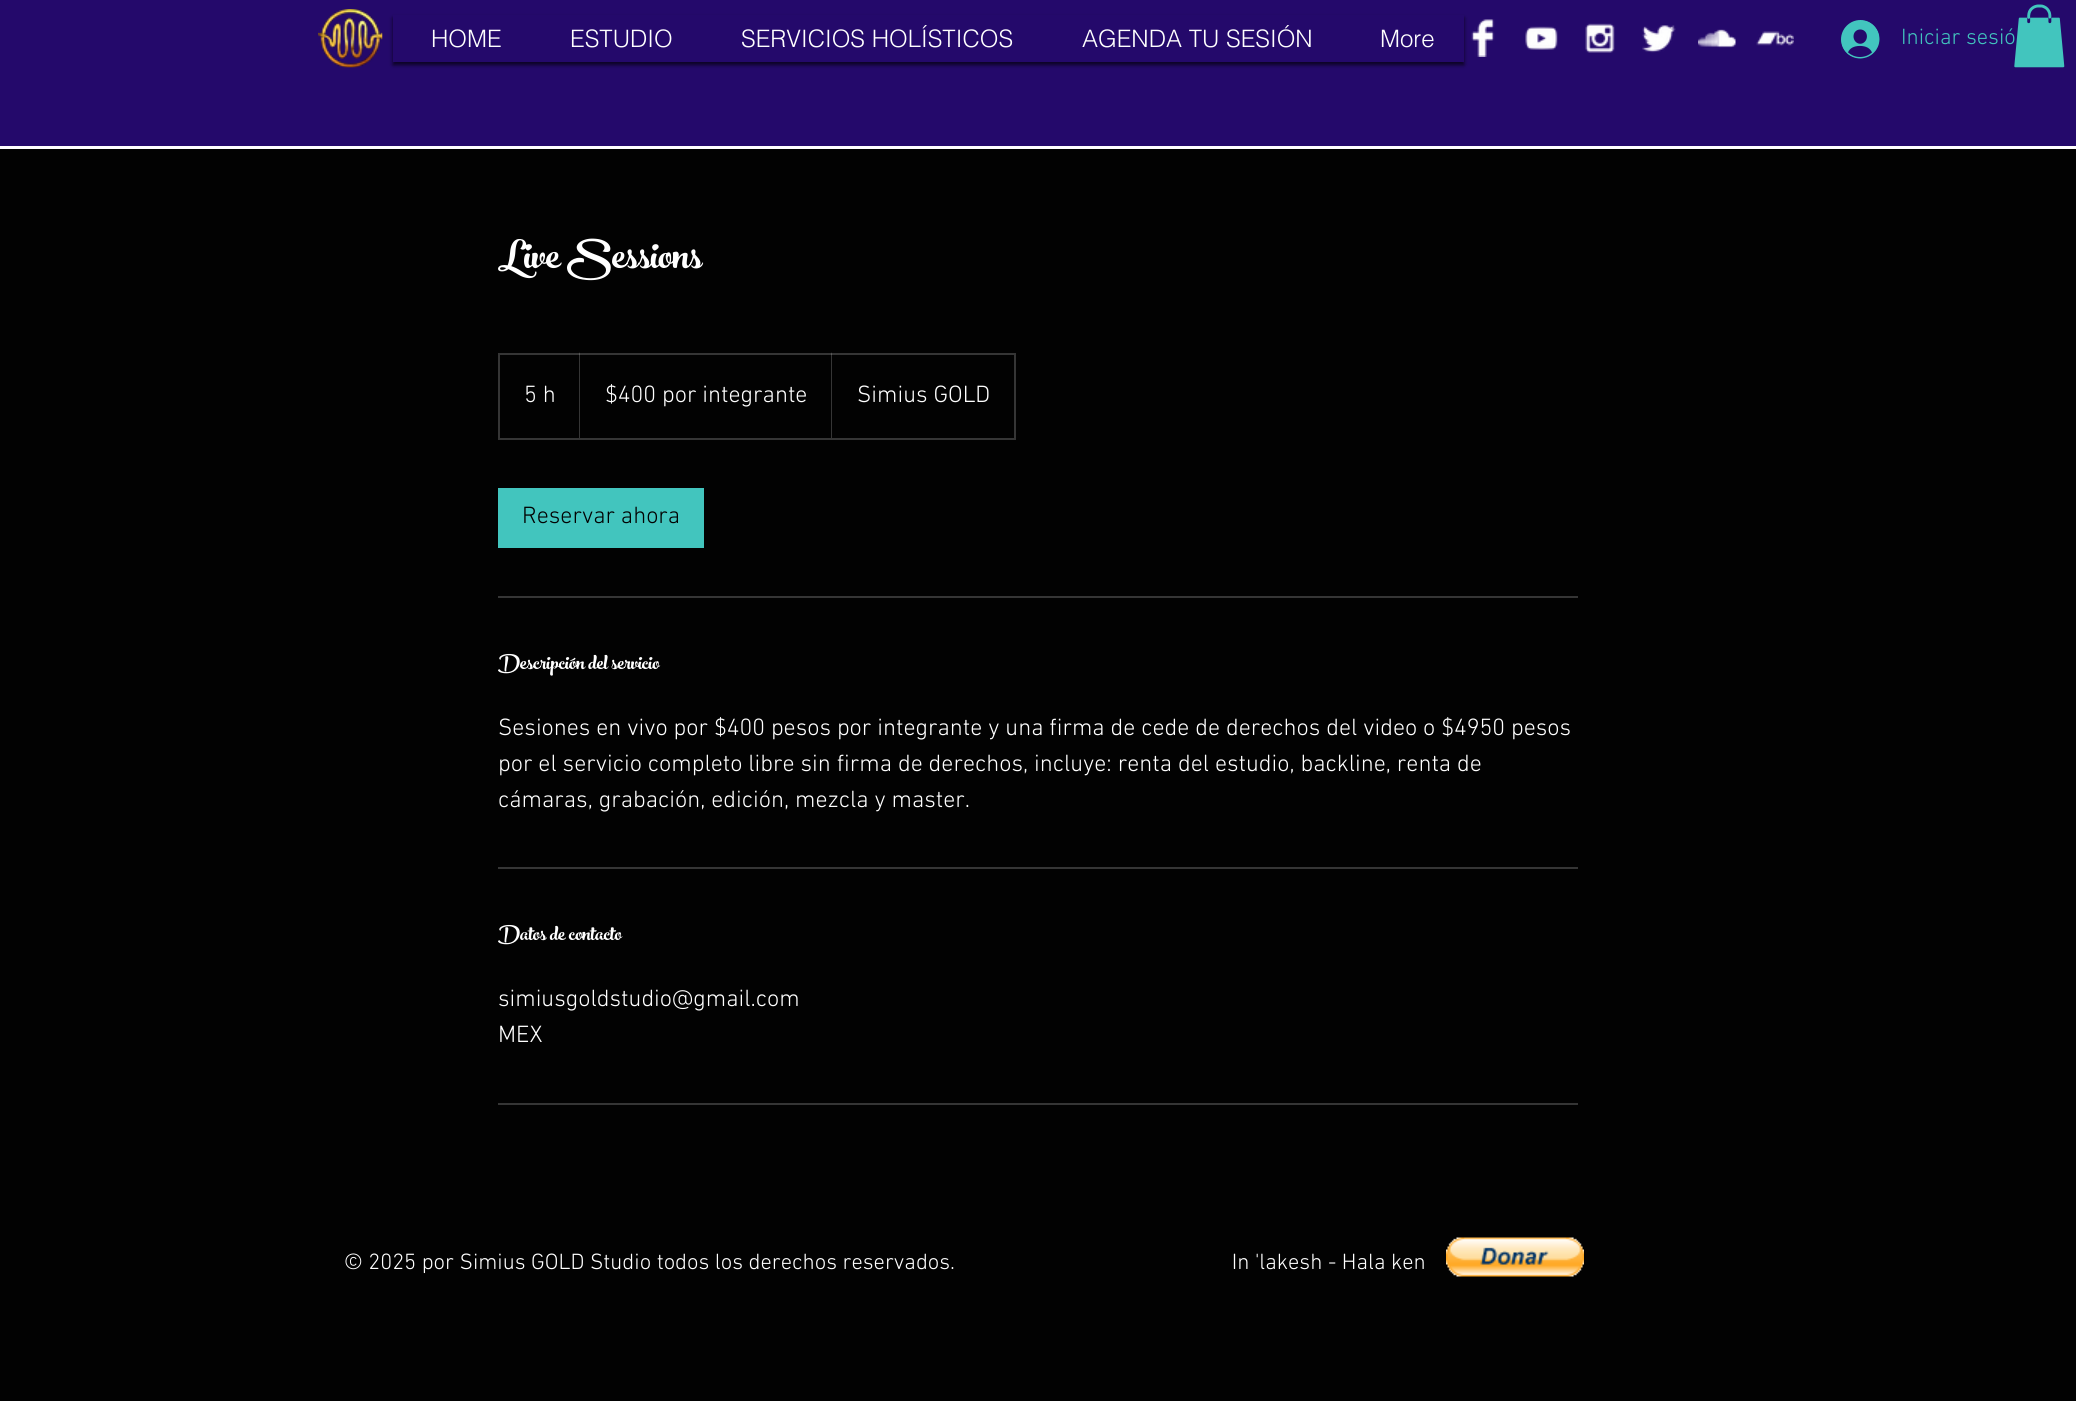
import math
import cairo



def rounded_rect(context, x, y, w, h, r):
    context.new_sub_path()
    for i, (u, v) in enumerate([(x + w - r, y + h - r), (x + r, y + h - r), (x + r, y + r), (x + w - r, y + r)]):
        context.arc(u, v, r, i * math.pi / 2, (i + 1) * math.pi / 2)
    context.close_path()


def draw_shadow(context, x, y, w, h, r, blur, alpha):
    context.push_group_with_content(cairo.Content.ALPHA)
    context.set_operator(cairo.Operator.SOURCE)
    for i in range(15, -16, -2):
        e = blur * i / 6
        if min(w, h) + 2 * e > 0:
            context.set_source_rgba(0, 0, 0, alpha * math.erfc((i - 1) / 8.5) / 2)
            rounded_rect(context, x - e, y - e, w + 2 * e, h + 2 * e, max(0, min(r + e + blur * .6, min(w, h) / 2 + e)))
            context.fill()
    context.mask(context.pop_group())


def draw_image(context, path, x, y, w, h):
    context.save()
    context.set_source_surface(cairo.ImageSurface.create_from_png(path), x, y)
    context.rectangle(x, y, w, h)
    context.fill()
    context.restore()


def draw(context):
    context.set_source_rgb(2 / 255, 2 / 255, 2 / 255)
    context.paint()
    context.set_source_rgb(36 / 255, 9 / 255, 107 / 255)
    context.rectangle(0, 0, 2076, 146)
    context.fill()
    context.set_source_rgb(1, 1, 1)
    context.rectangle(0, 146, 2076, 3)
    context.fill()
    draw_image(context, "images/1.png", 318, 9, 65, 59)
    context.set_source_rgb(0, 0, 0)
    draw_shadow(context, 393, 18, 1071, 47, 0, 2, 0.7)
    context.set_source_rgb(36 / 255, 9 / 255, 107 / 255)
    context.rectangle(393, 15, 1071, 47)
    context.fill()
    draw_image(context, "images/2.png", 1471, 19, 24, 38)
    draw_image(context, "images/3.png", 1525, 26, 33, 24)
    draw_image(context, "images/4.png", 1585, 23, 30, 30)
    draw_image(context, "images/5.png", 1642, 25, 34, 28)
    draw_image(context, "images/6.png", 1698, 29, 38, 19)
    draw_image(context, "images/7.png", 1756, 31, 38, 15)
    draw_image(context, "images/8.png", 1841, 20, 39, 39)
    draw_image(context, "images/9.png", 2014, 4, 51, 64)
    context.rectangle(499, 354, 516, 85)
    context.set_source_rgb(53 / 255, 53 / 255, 53 / 255)
    context.stroke()
    context.set_source_rgba(1, 1, 1, 0.2)
    context.new_path()
    context.move_to(579, 438)
    context.line_to(579, 352)
    context.line_to(580, 354)
    context.line_to(580, 438)
    context.close_path()
    context.fill()
    context.new_path()
    context.move_to(831, 438)
    context.line_to(831, 352)
    context.line_to(832, 354)
    context.line_to(832, 438)
    context.close_path()
    context.fill()
    context.set_source_rgb(66 / 255, 197 / 255, 190 / 255)
    context.rectangle(498, 488, 206, 60)
    context.fill()
    context.set_source_rgb(53 / 255, 53 / 255, 53 / 255)
    context.rectangle(498, 596, 1080, 2)
    context.fill()
    context.rectangle(498, 867, 1080, 2)
    context.fill()
    context.rectangle(498, 1103, 1080, 2)
    context.fill()
    draw_image(context, "images/10.png", 1446, 1237, 138, 40)
    context.select_font_face("helvetica Light")
    context.set_font_size(24)
    context.set_source_rgb(1, 1, 1)
    context.move_to(431, 47)
    context.show_text("HOME")
    context.move_to(570, 47)
    context.show_text("ESTUDIO")
    context.move_to(741, 47)
    context.show_text("SERVICIOS HOLÍSTICOS")
    context.move_to(1082, 47)
    context.show_text("AGENDA TU SESIÓN")
    context.move_to(1380, 47)
    context.show_text("More")
    context.select_font_face("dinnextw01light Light")
    context.set_font_size(22.5)
    context.set_source_rgb(66 / 255, 197 / 255, 190 / 255)
    context.move_to(1901, 44)
    context.show_text("Iniciar sesió")
    context.select_font_face("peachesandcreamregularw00")
    context.set_font_size(60)
    context.set_source_rgb(1, 1, 1)
    context.move_to(498, 268)
    context.show_text("Live Sessions")
    context.select_font_face("dinnextw01light Light")
    context.set_font_size(24)
    context.move_to(524, 402)
    context.show_text("5 h")
    context.move_to(605, 402)
    context.show_text("$400 por integrante")
    context.move_to(857, 402)
    context.show_text("Simius GOLD")
    context.set_source_rgb(2 / 255, 2 / 255, 2 / 255)
    context.move_to(522, 523)
    context.show_text("Reservar ahora")
    context.select_font_face("peachesandcreamregularw00")
    context.set_font_size(30)
    context.set_source_rgb(1, 1, 1)
    context.move_to(498, 669)
    context.show_text("Descripción del servicio")
    context.select_font_face("dinnextw01light Light")
    context.set_font_size(24)
    context.move_to(498, 735)
    context.show_text("Sesiones en vivo por $400 pesos por integrante y una firma de cede de derechos del video o $4950 pesos")
    context.move_to(498, 771)
    context.show_text("por el servicio completo libre sin firma de derechos, incluye: renta del estudio, backline, renta de")
    context.move_to(498, 807)
    context.show_text("cámaras, grabación, edición, mezcla y master.")
    context.select_font_face("peachesandcreamregularw00")
    context.set_font_size(30)
    context.move_to(498, 940)
    context.show_text("Datos de contacto")
    context.select_font_face("dinnextw01light Light")
    context.set_font_size(24)
    context.move_to(498, 1006)
    context.show_text("simiusgoldstudio@gmail.com")
    context.move_to(498, 1042)
    context.show_text("MEX")
    context.set_font_size(22.5)
    context.move_to(344, 1269)
    context.show_text("© 2025 por Simius GOLD Studio todos los derechos reservados.                                                  In 'lakesh - Hala ken")


surface = cairo.ImageSurface(cairo.Format.RGB24, 2076, 1401)
context = cairo.Context(surface)
options = cairo.FontOptions()
options.set_hint_metrics(cairo.HintMetrics.OFF)
options.set_hint_style(cairo.HintStyle.NONE)
context.set_font_options(options)
context.set_miter_limit(4)
draw(context)
surface.write_to_png("out.png")
